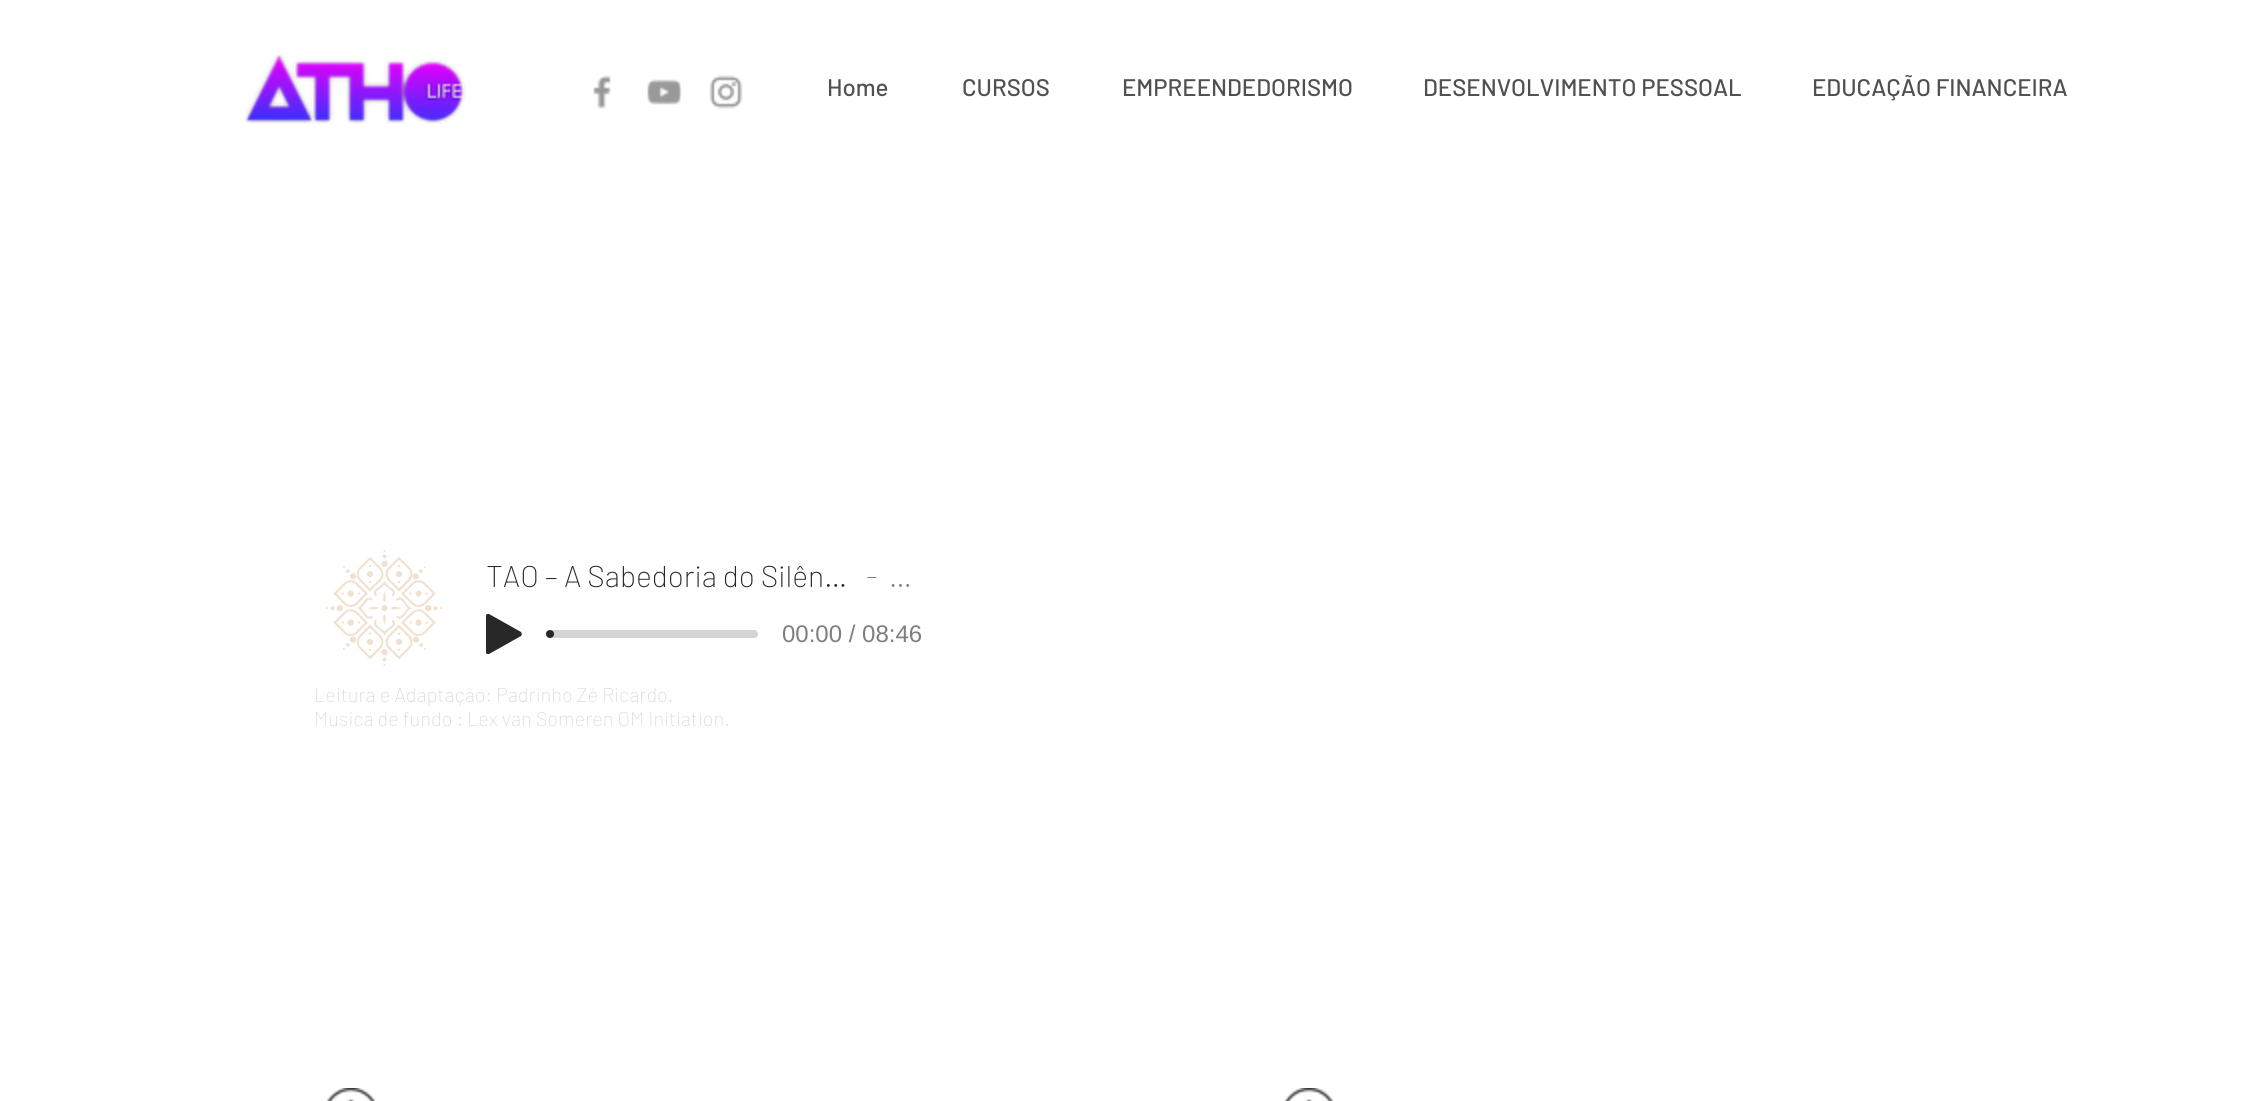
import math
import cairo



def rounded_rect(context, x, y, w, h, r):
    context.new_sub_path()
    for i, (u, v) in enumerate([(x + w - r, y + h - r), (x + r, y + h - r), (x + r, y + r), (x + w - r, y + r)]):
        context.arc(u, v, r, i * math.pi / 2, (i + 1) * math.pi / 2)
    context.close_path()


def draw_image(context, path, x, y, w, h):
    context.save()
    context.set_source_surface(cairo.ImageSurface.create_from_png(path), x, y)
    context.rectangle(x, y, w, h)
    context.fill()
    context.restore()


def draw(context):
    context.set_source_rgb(1, 1, 1)
    context.paint()
    draw_image(context, "images/1.png", 245, 54, 221, 70)
    draw_image(context, "images/2.png", 593, 75, 18, 34)
    draw_image(context, "images/3.png", 647, 79, 35, 26)
    draw_image(context, "images/4.png", 709, 75, 34, 34)
    draw_image(context, "images/5.png", 326, 550, 116, 116)
    context.save()
    context.rectangle(486, 614, 36, 40)
    context.clip()
    context.set_source_rgb(40 / 255, 40 / 255, 40 / 255)
    context.new_path()
    context.move_to(521, 632)
    context.curve_to(522, 633, 522, 635, 521, 636)
    context.line_to(489, 654)
    context.curve_to(488, 655, 486, 654, 486, 652)
    context.line_to(486, 616)
    context.curve_to(486, 614, 488, 613, 489, 614)
    context.close_path()
    context.fill()
    context.restore()
    context.set_source_rgb(212 / 255, 212 / 255, 212 / 255)
    rounded_rect(context, 550, 630, 208, 8, 4)
    context.fill()
    context.set_source_rgb(40 / 255, 40 / 255, 40 / 255)
    context.arc(550, 634, 4, 0, 2 * math.pi)
    context.fill()
    draw_image(context, "images/6.png", 326, 1088, 50, 13)
    draw_image(context, "images/6.png", 1284, 1088, 50, 13)
    context.select_font_face("Barlow Medium")
    context.set_font_size(24)
    context.set_source_rgb(80 / 255, 80 / 255, 80 / 255)
    context.move_to(827, 96)
    context.show_text("Home")
    context.move_to(962, 96)
    context.show_text("CURSOS")
    context.move_to(1122, 96)
    context.show_text("EMPREENDEDORISMO")
    context.move_to(1423, 96)
    context.show_text("DESENVOLVIMENTO PESSOAL")
    context.move_to(1812, 96)
    context.show_text("EDUCAÇÃO FINANCEIRA")
    context.select_font_face("Barlow ExtraLight")
    context.set_font_size(30)
    context.set_source_rgb(40 / 255, 40 / 255, 40 / 255)
    context.move_to(486, 587)
    context.show_text("TAO – A Sabedoria do Silên…")
    context.set_source_rgb(126 / 255, 126 / 255, 126 / 255)
    context.move_to(866, 587)
    context.show_text("-")
    context.move_to(889, 587)
    context.show_text("…")
    context.select_font_face("Liberation Sans")
    context.set_font_size(24)
    context.move_to(782, 642)
    context.show_text("00:00 / 08:46")
    context.select_font_face("Barlow ExtraLight")
    context.set_font_size(20)
    context.set_source_rgb(219 / 255, 219 / 255, 219 / 255)
    context.move_to(314, 702)
    context.show_text("Leitura e Adaptação: Padrinho Zé Ricardo.")
    context.move_to(314, 726)
    context.show_text("Musica de fundo : Lex van Someren OM Initiation.")


surface = cairo.ImageSurface(cairo.Format.RGB24, 2247, 1101)
context = cairo.Context(surface)
options = cairo.FontOptions()
options.set_hint_metrics(cairo.HintMetrics.OFF)
options.set_hint_style(cairo.HintStyle.NONE)
context.set_font_options(options)
context.set_miter_limit(4)
draw(context)
surface.write_to_png("out.png")
